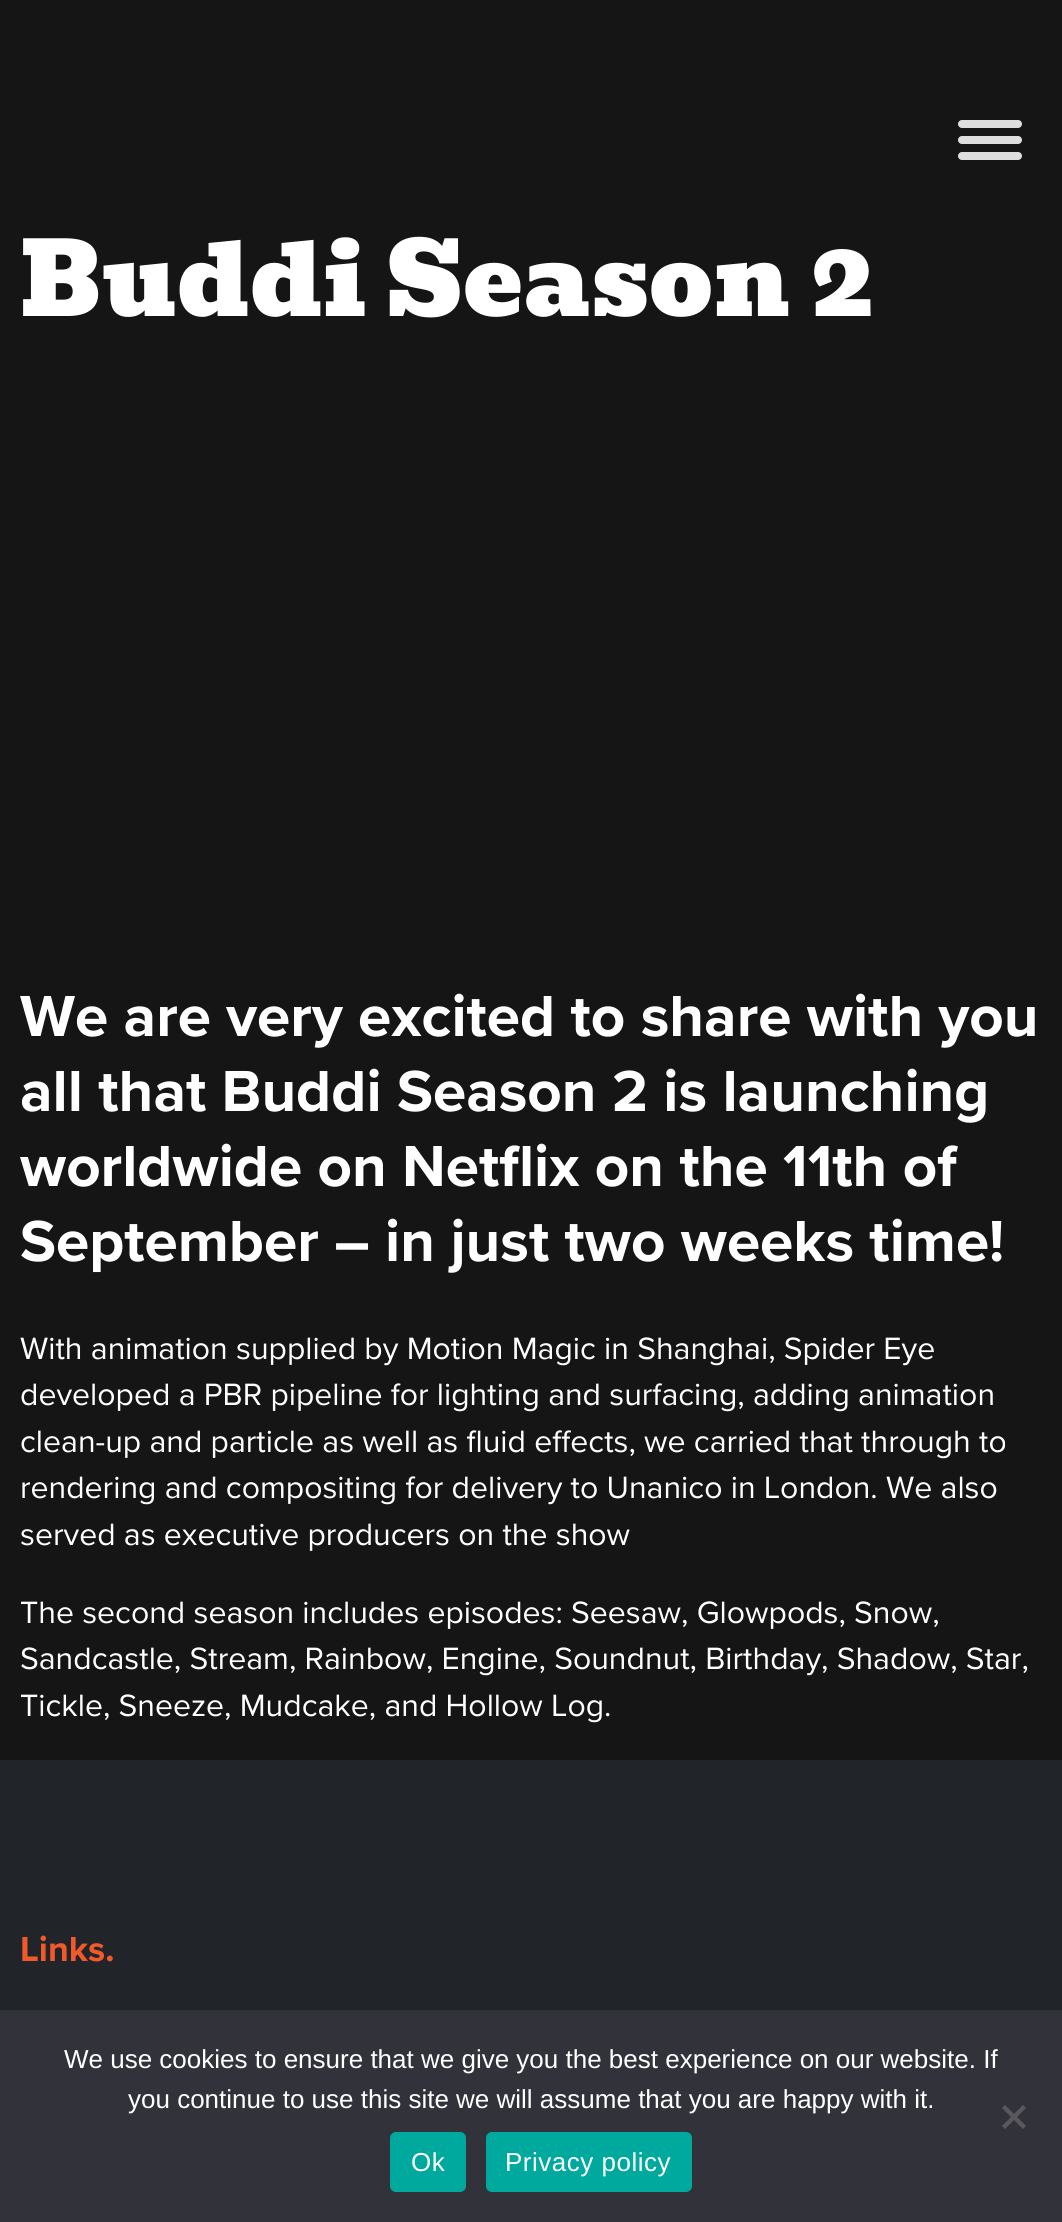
import math
import cairo



def draw_spaced(context, x, y, s, letter, word):
    context.move_to(x, y)
    for ch in s:
        context.show_text(ch)
        context.rel_move_to(letter + word * (ch == ' '), 0)


def rounded_rect(context, x, y, w, h, r):
    context.new_sub_path()
    for i, (u, v) in enumerate([(x + w - r, y + h - r), (x + r, y + h - r), (x + r, y + r), (x + w - r, y + r)]):
        context.arc(u, v, r, i * math.pi / 2, (i + 1) * math.pi / 2)
    context.close_path()


def draw(context):
    context.set_source_rgb(21 / 255, 21 / 255, 21 / 255)
    context.paint()
    context.set_source_rgb(221 / 255, 221 / 255, 221 / 255)
    rounded_rect(context, 958, 120, 64, 8, 4)
    context.fill()
    rounded_rect(context, 958, 136, 64, 8, 4)
    context.fill()
    rounded_rect(context, 958, 152, 64, 8, 4)
    context.fill()
    context.set_source_rgb(33 / 255, 37 / 255, 41 / 255)
    context.rectangle(0, 1760, 1062, 250)
    context.fill()
    context.set_source_rgb(50 / 255, 50 / 255, 58 / 255)
    context.rectangle(0, 2010, 1062, 212)
    context.fill()
    context.set_source_rgb(89 / 255, 89 / 255, 93 / 255)
    context.new_path()
    context.move_to(1023, 2105)
    context.line_to(1026, 2108)
    context.line_to(1005, 2129)
    context.line_to(1002, 2126)
    context.close_path()
    context.fill()
    context.new_path()
    context.move_to(1002, 2108)
    context.line_to(1005, 2105)
    context.line_to(1026, 2126)
    context.line_to(1023, 2129)
    context.close_path()
    context.fill()
    context.set_source_rgb(0, 169 / 255, 157 / 255)
    rounded_rect(context, 390, 2132, 76, 60, 6)
    context.fill()
    rounded_rect(context, 486, 2132, 206, 60, 6)
    context.fill()
    context.select_font_face("Bevan")
    context.set_font_size(100)
    context.set_source_rgb(1, 1, 1)
    context.move_to(20, 316)
    context.show_text("Buddi Season 2")
    context.select_font_face("Proxima Nova", cairo.FontSlant.NORMAL, cairo.FontWeight.BOLD)
    context.set_font_size(60)
    context.move_to(20, 1036)
    context.show_text("We are very excited to share with you")
    context.move_to(20, 1111)
    context.show_text("all that Buddi Season 2 is launching")
    context.move_to(20, 1186)
    context.show_text("worldwide on Netflix on the 11th of")
    context.move_to(20, 1261)
    context.show_text("September – in just two weeks time!")
    context.select_font_face("Proxima Nova")
    context.set_font_size(32)
    context.move_to(20, 1359)
    context.show_text("With animation supplied by Motion Magic in Shanghai, Spider Eye")
    context.move_to(20, 1405)
    context.show_text("developed a PBR pipeline for lighting and surfacing, adding animation")
    context.move_to(20, 1452)
    context.show_text("clean-up and particle as well as fluid effects, we carried that through to")
    context.move_to(20, 1498)
    context.show_text("rendering and compositing for delivery to Unanico in London. We also")
    context.move_to(20, 1545)
    context.show_text("served as executive producers on the show")
    context.move_to(20, 1623)
    context.show_text("The second season includes episodes: Seesaw, Glowpods, Snow,")
    context.move_to(20, 1669)
    context.show_text("Sandcastle, Stream, Rainbow, Engine, Soundnut, Birthday, Shadow, Star,")
    context.move_to(20, 1716)
    context.show_text("Tickle, Sneeze, Mudcake, and Hollow Log.")
    context.select_font_face("Proxima Nova", cairo.FontSlant.NORMAL, cairo.FontWeight.BOLD)
    context.set_font_size(36)
    context.set_source_rgb(241 / 255, 89 / 255, 42 / 255)
    context.move_to(20, 1961)
    context.show_text("Links.")
    context.select_font_face("Liberation Sans")
    context.set_font_size(26)
    context.set_source_rgb(1, 1, 1)
    context.move_to(64, 2068)
    context.show_text("We use cookies to ensure that we give you the best experience on our website. If")
    context.move_to(128, 2108)
    context.show_text("you continue to use this site we will assume that you are happy with it.")
    draw_spaced(context, 411, 2171, "Ok", 0.5, 0)
    draw_spaced(context, 505, 2171, "Privacy policy", 0.5, 0)


surface = cairo.ImageSurface(cairo.Format.RGB24, 1062, 2222)
context = cairo.Context(surface)
options = cairo.FontOptions()
options.set_hint_metrics(cairo.HintMetrics.OFF)
options.set_hint_style(cairo.HintStyle.NONE)
context.set_font_options(options)
context.set_miter_limit(4)
draw(context)
surface.write_to_png("out.png")
